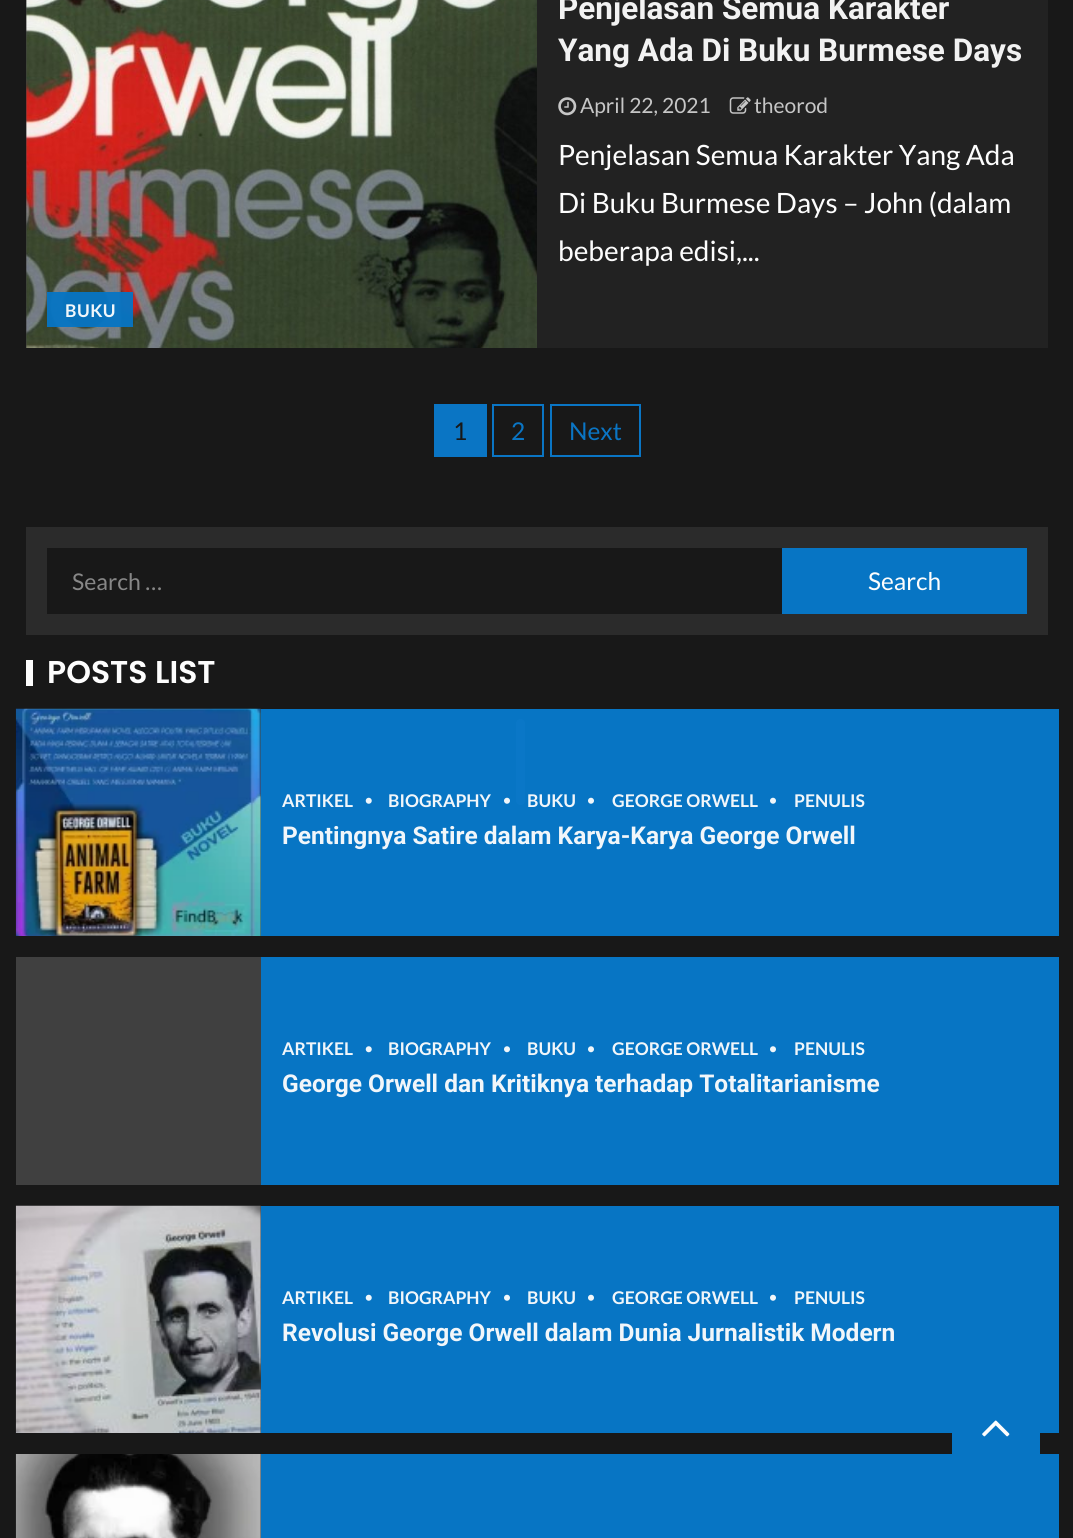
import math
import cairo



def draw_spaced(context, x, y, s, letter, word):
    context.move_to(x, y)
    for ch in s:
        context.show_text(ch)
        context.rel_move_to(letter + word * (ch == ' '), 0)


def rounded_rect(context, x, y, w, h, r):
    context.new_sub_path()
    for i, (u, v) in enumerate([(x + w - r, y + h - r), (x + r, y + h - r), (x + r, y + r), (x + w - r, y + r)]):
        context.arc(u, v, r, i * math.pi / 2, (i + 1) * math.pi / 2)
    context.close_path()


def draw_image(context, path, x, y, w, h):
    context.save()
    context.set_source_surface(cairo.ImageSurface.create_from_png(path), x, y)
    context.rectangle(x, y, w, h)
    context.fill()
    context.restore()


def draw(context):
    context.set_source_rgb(24 / 255, 24 / 255, 24 / 255)
    context.paint()
    context.set_source_rgb(34 / 255, 34 / 255, 34 / 255)
    context.rectangle(537, 0, 511, 348)
    context.fill()
    draw_image(context, "images/1.png", 558, 97, 19, 19)
    draw_image(context, "images/2.png", 729, 97, 22, 17)
    context.set_source_rgb(64 / 255, 64 / 255, 64 / 255)
    context.rectangle(26, 0, 1, 348)
    context.fill()
    draw_image(context, "images/3.png", 26, 0, 511, 348)
    context.set_source_rgba(7 / 255, 117 / 255, 196 / 255, 0.95)
    context.rectangle(47, 292, 86, 35)
    context.fill()
    context.set_source_rgb(10 / 255, 117 / 255, 196 / 255)
    context.rectangle(434, 404, 53, 53)
    context.fill()
    context.rectangle(493, 405, 50, 51)
    context.stroke()
    context.rectangle(551, 405, 89, 51)
    context.stroke()
    context.set_source_rgb(43 / 255, 43 / 255, 43 / 255)
    context.rectangle(26, 527, 1022, 108)
    context.fill()
    context.set_source_rgb(24 / 255, 24 / 255, 24 / 255)
    context.rectangle(47, 548, 735, 66)
    context.fill()
    context.set_source_rgb(7 / 255, 117 / 255, 196 / 255)
    context.rectangle(782, 548, 245, 66)
    context.fill()
    context.set_source_rgb(253 / 255, 253 / 255, 253 / 255)
    context.rectangle(26, 660, 7, 26)
    context.fill()
    context.set_source_rgb(7 / 255, 117 / 255, 196 / 255)
    context.rectangle(261, 709, 798, 227)
    context.fill()
    context.set_source_rgb(64 / 255, 64 / 255, 64 / 255)
    context.rectangle(260, 709, 1, 227)
    context.fill()
    draw_image(context, "images/4.png", 15, 708, 246, 228)
    draw_image(context, "images/5.png", 365, 797, 7, 7)
    draw_image(context, "images/6.png", 504, 797, 6, 7)
    draw_image(context, "images/7.png", 588, 797, 6, 7)
    draw_image(context, "images/7.png", 770, 797, 6, 7)
    context.set_source_rgb(7 / 255, 117 / 255, 196 / 255)
    context.rectangle(261, 957, 798, 228)
    context.fill()
    context.set_source_rgb(64 / 255, 64 / 255, 64 / 255)
    context.rectangle(16, 957, 245, 228)
    context.fill()
    draw_image(context, "images/8.png", 365, 1046, 7, 7)
    draw_image(context, "images/9.png", 504, 1046, 6, 7)
    draw_image(context, "images/9.png", 588, 1046, 6, 7)
    draw_image(context, "images/9.png", 770, 1046, 6, 7)
    context.set_source_rgb(7 / 255, 117 / 255, 196 / 255)
    context.rectangle(261, 1206, 798, 227)
    context.fill()
    context.set_source_rgb(64 / 255, 64 / 255, 64 / 255)
    context.rectangle(260, 1206, 1, 227)
    context.fill()
    draw_image(context, "images/10.png", 15, 1205, 246, 228)
    draw_image(context, "images/5.png", 365, 1294, 7, 7)
    draw_image(context, "images/6.png", 504, 1294, 6, 7)
    draw_image(context, "images/7.png", 588, 1294, 6, 7)
    draw_image(context, "images/7.png", 770, 1294, 6, 7)
    context.set_source_rgb(7 / 255, 117 / 255, 196 / 255)
    context.rectangle(261, 1454, 798, 84)
    context.fill()
    context.set_source_rgb(64 / 255, 64 / 255, 64 / 255)
    context.rectangle(260, 1454, 1, 84)
    context.fill()
    draw_image(context, "images/11.png", 15, 1454, 246, 84)
    context.set_source_rgb(10 / 255, 119 / 255, 199 / 255)
    rounded_rect(context, 516, 719, 9, 86, 4.5)
    context.fill()
    context.set_source_rgb(7 / 255, 117 / 255, 196 / 255)
    context.rectangle(952, 1433, 88, 21)
    context.fill()
    draw_image(context, "images/12.png", 982, 1420, 28, 17)
    context.select_font_face("Roboto", cairo.FontSlant.NORMAL, cairo.FontWeight.BOLD)
    context.set_font_size(31.5)
    context.set_source_rgb(242 / 255, 242 / 255, 242 / 255)
    context.move_to(558, 19)
    context.show_text("Penjelasan Semua Karakter")
    context.move_to(558, 61)
    context.show_text("Yang Ada Di Buku Burmese Days")
    context.select_font_face("Lato")
    context.set_font_size(21)
    context.set_source_rgb(198 / 255, 198 / 255, 198 / 255)
    context.move_to(580, 113)
    context.show_text("April 22, 2021")
    context.move_to(754, 113)
    context.show_text("theorod")
    context.set_font_size(28)
    context.set_source_rgb(253 / 255, 253 / 255, 253 / 255)
    context.move_to(558, 165)
    context.show_text("Penjelasan Semua Karakter Yang Ada")
    context.move_to(558, 213)
    context.show_text("Di Buku Burmese Days – John (dalam")
    context.move_to(558, 261)
    context.show_text("beberapa edisi,...")
    context.select_font_face("Lato", cairo.FontSlant.NORMAL, cairo.FontWeight.BOLD)
    context.set_font_size(17.5)
    context.set_source_rgb(241 / 255, 246 / 255, 250 / 255)
    draw_spaced(context, 65, 317, "BUKU", 0.5, 0)
    context.select_font_face("Lato")
    context.set_font_size(24.5)
    context.set_source_rgb(24 / 255, 24 / 255, 24 / 255)
    context.move_to(453, 440)
    context.show_text("1")
    context.set_source_rgb(10 / 255, 117 / 255, 196 / 255)
    context.move_to(511, 440)
    context.show_text("2")
    context.move_to(569, 440)
    context.show_text("Next")
    context.set_font_size(23)
    context.set_source_rgb(135 / 255, 135 / 255, 135 / 255)
    context.move_to(72, 590)
    context.show_text("Search …")
    context.set_font_size(24.5)
    context.set_source_rgb(253 / 255, 253 / 255, 253 / 255)
    context.move_to(868, 590)
    context.show_text("Search")
    context.select_font_face("Poppins SemiBold")
    context.set_font_size(31.5)
    context.move_to(47, 683)
    context.show_text("POSTS LIST")
    context.select_font_face("Lato", cairo.FontSlant.NORMAL, cairo.FontWeight.BOLD)
    context.set_font_size(17.5)
    context.set_source_rgb(241 / 255, 246 / 255, 250 / 255)
    context.move_to(282, 807)
    context.show_text("ARTIKEL")
    context.move_to(388, 807)
    context.show_text("BIOGRAPHY")
    context.move_to(527, 807)
    context.show_text("BUKU")
    context.move_to(612, 807)
    context.show_text("GEORGE ORWELL")
    context.move_to(794, 807)
    context.show_text("PENULIS")
    context.select_font_face("Roboto", cairo.FontSlant.NORMAL, cairo.FontWeight.BOLD)
    context.set_font_size(24.5)
    context.move_to(282, 844)
    context.show_text("Pentingnya Satire dalam Karya-Karya George Orwell")
    context.select_font_face("Lato", cairo.FontSlant.NORMAL, cairo.FontWeight.BOLD)
    context.set_font_size(17.5)
    context.move_to(282, 1055)
    context.show_text("ARTIKEL")
    context.move_to(388, 1055)
    context.show_text("BIOGRAPHY")
    context.move_to(527, 1055)
    context.show_text("BUKU")
    context.move_to(612, 1055)
    context.show_text("GEORGE ORWELL")
    context.move_to(794, 1055)
    context.show_text("PENULIS")
    context.select_font_face("Roboto", cairo.FontSlant.NORMAL, cairo.FontWeight.BOLD)
    context.set_font_size(24.5)
    context.move_to(282, 1092)
    context.show_text("George Orwell dan Kritiknya terhadap Totalitarianisme")
    context.select_font_face("Lato", cairo.FontSlant.NORMAL, cairo.FontWeight.BOLD)
    context.set_font_size(17.5)
    context.move_to(282, 1304)
    context.show_text("ARTIKEL")
    context.move_to(388, 1304)
    context.show_text("BIOGRAPHY")
    context.move_to(527, 1304)
    context.show_text("BUKU")
    context.move_to(612, 1304)
    context.show_text("GEORGE ORWELL")
    context.move_to(794, 1304)
    context.show_text("PENULIS")
    context.select_font_face("Roboto", cairo.FontSlant.NORMAL, cairo.FontWeight.BOLD)
    context.set_font_size(24.5)
    context.move_to(282, 1341)
    context.show_text("Revolusi George Orwell dalam Dunia Jurnalistik Modern")


surface = cairo.ImageSurface(cairo.Format.RGB24, 1073, 1538)
context = cairo.Context(surface)
options = cairo.FontOptions()
options.set_hint_metrics(cairo.HintMetrics.OFF)
options.set_hint_style(cairo.HintStyle.NONE)
context.set_font_options(options)
context.set_miter_limit(4)
draw(context)
surface.write_to_png("out.png")
